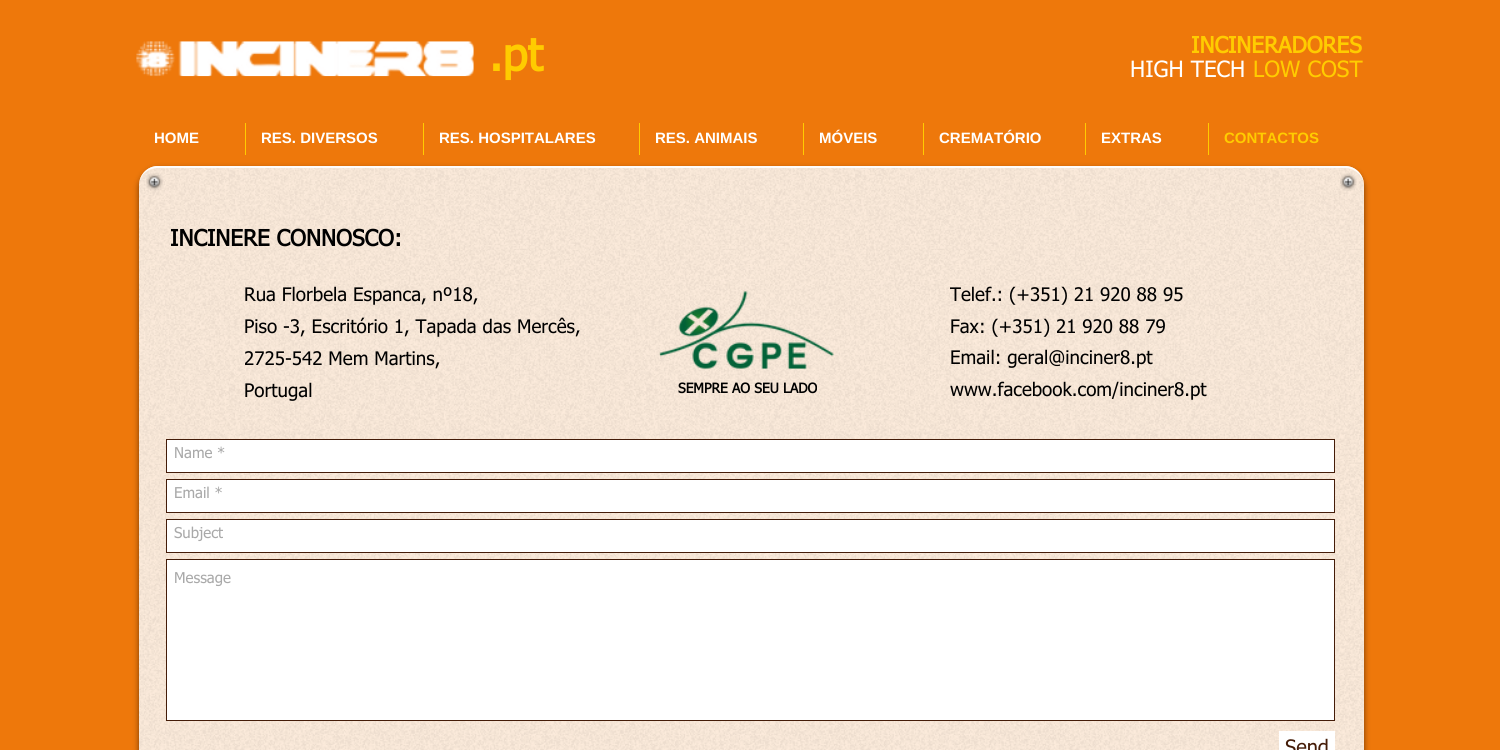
import math
import cairo



def rounded_rect(context, x, y, w, h, r):
    context.new_sub_path()
    for i, (u, v) in enumerate([(x + w - r, y + h - r), (x + r, y + h - r), (x + r, y + r), (x + w - r, y + r)]):
        context.arc(u, v, r, i * math.pi / 2, (i + 1) * math.pi / 2)
    context.close_path()


def draw_shadow(context, x, y, w, h, r, blur, alpha):
    context.push_group_with_content(cairo.Content.ALPHA)
    context.set_operator(cairo.Operator.SOURCE)
    for i in range(15, -16, -2):
        e = blur * i / 6
        if min(w, h) + 2 * e > 0:
            context.set_source_rgba(0, 0, 0, alpha * math.erfc((i - 1) / 8.5) / 2)
            rounded_rect(context, x - e, y - e, w + 2 * e, h + 2 * e, max(0, min(r + e + blur * .6, min(w, h) / 2 + e)))
            context.fill()
    context.mask(context.pop_group())


def draw_image(context, path, x, y, w, h):
    context.save()
    context.set_source_surface(cairo.ImageSurface.create_from_png(path), x, y)
    context.rectangle(x, y, w, h)
    context.fill()
    context.restore()


def draw(context):
    context.set_source_rgb(238 / 255, 120 / 255, 11 / 255)
    context.paint()
    draw_image(context, "images/1.png", 136, 41, 338, 36)
    context.set_source_rgb(1, 204 / 255, 0)
    context.rectangle(245, 123, 1, 32)
    context.fill()
    context.rectangle(423, 123, 1, 32)
    context.fill()
    context.rectangle(639, 123, 1, 32)
    context.fill()
    context.rectangle(803, 123, 1, 32)
    context.fill()
    context.rectangle(923, 123, 1, 32)
    context.fill()
    context.rectangle(1085, 123, 1, 32)
    context.fill()
    context.rectangle(1208, 123, 1, 32)
    context.fill()
    context.save()
    context.set_fill_rule(cairo.FillRule.EVEN_ODD)
    context.new_path()
    context.move_to(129, 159)
    context.line_to(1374, 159)
    context.line_to(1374, 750)
    context.line_to(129, 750)
    context.close_path()
    context.move_to(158, 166)
    context.line_to(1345, 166)
    context.curve_to(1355.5, 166, 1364, 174.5, 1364, 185)
    context.line_to(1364, 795)
    context.curve_to(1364, 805.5, 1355.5, 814, 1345, 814)
    context.line_to(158, 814)
    context.curve_to(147.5, 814, 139, 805.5, 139, 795)
    context.line_to(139, 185)
    context.curve_to(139, 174.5, 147.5, 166, 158, 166)
    context.close_path()
    context.clip()
    context.set_source_rgb(0, 0, 0)
    draw_shadow(context, 139, 169, 1225, 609, 19, 3, 0.53)
    context.restore()
    context.set_source_rgba(1, 1, 1, 0.85)
    rounded_rect(context, 139, 166, 1225, 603, 19)
    context.fill()
    draw_image(context, "images/2.png", 139, 166, 1225, 584)
    context.set_source_rgba(1, 1, 1, 0.92)
    context.new_path()
    context.move_to(158, 168)
    context.line_to(1345, 168)
    context.curve_to(1355, 168, 1364, 176, 1364, 186)
    context.curve_to(1364, 175, 1356, 166, 1345, 166)
    context.line_to(158, 166)
    context.curve_to(147, 166, 139, 175, 139, 186)
    context.curve_to(139, 176, 147, 168, 158, 168)
    context.close_path()
    context.fill()
    draw_image(context, "images/3.png", 146, 173, 17, 18)
    draw_image(context, "images/4.png", 1340, 173, 17, 18)
    draw_image(context, "images/5.png", 659, 291, 175, 78)
    context.set_source_rgb(1, 1, 1)
    context.rectangle(166.5, 439.5, 1168, 33)
    context.fill_preserve()
    context.set_source_rgb(68 / 255, 28 / 255, 8 / 255)
    context.set_line_width(1)
    context.stroke()
    context.set_source_rgb(1, 1, 1)
    context.rectangle(166.5, 479.5, 1168, 33)
    context.fill_preserve()
    context.set_source_rgb(68 / 255, 28 / 255, 8 / 255)
    context.stroke()
    context.set_source_rgb(1, 1, 1)
    context.rectangle(166.5, 519.5, 1168, 33)
    context.fill_preserve()
    context.set_source_rgb(68 / 255, 28 / 255, 8 / 255)
    context.stroke()
    context.set_source_rgb(1, 1, 1)
    context.rectangle(166.5, 559.5, 1168, 161)
    context.fill_preserve()
    context.set_source_rgb(68 / 255, 28 / 255, 8 / 255)
    context.stroke()
    context.set_source_rgb(1, 1, 1)
    context.rectangle(1279, 731, 56, 19)
    context.fill()
    context.select_font_face("tahoma", cairo.FontSlant.NORMAL, cairo.FontWeight.BOLD)
    context.set_font_size(45)
    context.set_source_rgb(1, 204 / 255, 0)
    context.move_to(489, 71)
    context.show_text(".pt")
    context.set_font_size(22.5)
    context.move_to(1191, 53)
    context.show_text("INCINERADORES")
    context.select_font_face("tahoma")
    context.set_source_rgb(1, 1, 1)
    context.move_to(1130, 77)
    context.show_text("HIGH TECH")
    context.set_source_rgb(1, 204 / 255, 0)
    context.move_to(1253, 77)
    context.show_text("LOW COST")
    context.select_font_face("Liberation Sans", cairo.FontSlant.NORMAL, cairo.FontWeight.BOLD)
    context.set_font_size(15)
    context.set_source_rgb(1, 1, 1)
    context.move_to(154, 143)
    context.show_text("HOME")
    context.move_to(261, 143)
    context.show_text("RES. DIVERSOS")
    context.move_to(439, 143)
    context.show_text("RES. HOSPITALARES")
    context.move_to(655, 143)
    context.show_text("RES. ANIMAIS")
    context.move_to(819, 143)
    context.show_text("MÓVEIS")
    context.move_to(939, 143)
    context.show_text("CREMATÓRIO")
    context.move_to(1101, 143)
    context.show_text("EXTRAS")
    context.set_source_rgb(1, 204 / 255, 0)
    context.move_to(1224, 143)
    context.show_text("CONTACTOS")
    context.select_font_face("tahoma", cairo.FontSlant.NORMAL, cairo.FontWeight.BOLD)
    context.set_font_size(22.5)
    context.set_source_rgb(0, 0, 0)
    context.move_to(170, 246)
    context.show_text("INCINERE CONNOSCO:")
    context.select_font_face("tahoma")
    context.set_font_size(18.75)
    context.move_to(244, 301)
    context.show_text("Rua Florbela Espanca, nº18,")
    context.move_to(244, 333)
    context.show_text("Piso -3, Escritório 1, Tapada das Mercês,")
    context.move_to(244, 365)
    context.show_text("2725-542 Mem Martins,")
    context.move_to(244, 397)
    context.show_text("Portugal")
    context.select_font_face("tahoma", cairo.FontSlant.NORMAL, cairo.FontWeight.BOLD)
    context.set_font_size(13.75)
    context.move_to(678, 393)
    context.show_text("SEMPRE AO SEU LADO")
    context.select_font_face("tahoma")
    context.set_font_size(18.75)
    context.move_to(950, 301)
    context.show_text("Telef.: (+351) 21 920 88 95")
    context.move_to(950, 333)
    context.show_text("Fax: (+351) 21 920 88 79")
    context.move_to(950, 364)
    context.show_text("Email: geral@inciner8.pt")
    context.move_to(950, 396)
    context.show_text("www.facebook.com/inciner8.pt")
    context.set_font_size(15)
    context.set_source_rgb(169 / 255, 169 / 255, 169 / 255)
    context.move_to(174, 458)
    context.show_text("Name *")
    context.move_to(174, 498)
    context.show_text("Email *")
    context.move_to(174, 538)
    context.show_text("Subject")
    context.move_to(174, 583)
    context.show_text("Message")
    context.set_font_size(20)
    context.set_source_rgb(68 / 255, 28 / 255, 8 / 255)
    context.move_to(1285, 754)
    context.show_text("Send")


surface = cairo.ImageSurface(cairo.Format.RGB24, 1500, 750)
context = cairo.Context(surface)
options = cairo.FontOptions()
options.set_hint_metrics(cairo.HintMetrics.OFF)
options.set_hint_style(cairo.HintStyle.NONE)
context.set_font_options(options)
context.set_miter_limit(4)
draw(context)
surface.write_to_png("out.png")
